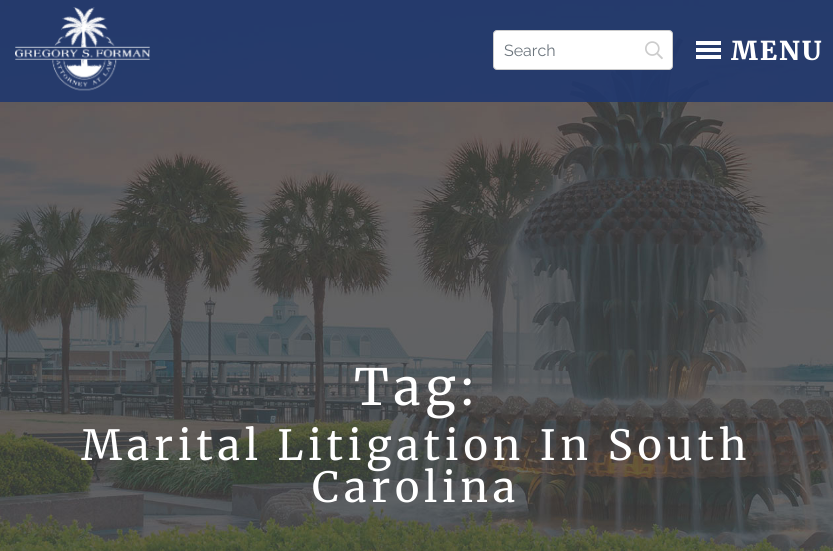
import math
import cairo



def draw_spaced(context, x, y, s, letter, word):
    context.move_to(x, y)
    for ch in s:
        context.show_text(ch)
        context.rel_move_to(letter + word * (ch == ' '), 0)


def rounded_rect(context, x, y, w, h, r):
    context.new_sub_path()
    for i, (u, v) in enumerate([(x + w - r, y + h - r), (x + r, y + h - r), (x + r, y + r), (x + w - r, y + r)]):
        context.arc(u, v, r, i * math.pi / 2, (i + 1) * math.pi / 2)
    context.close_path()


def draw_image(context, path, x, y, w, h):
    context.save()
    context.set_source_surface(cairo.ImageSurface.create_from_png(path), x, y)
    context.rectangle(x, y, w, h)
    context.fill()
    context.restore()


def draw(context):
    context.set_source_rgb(1, 1, 1)
    context.paint()
    draw_image(context, "images/3.png", 0, 0, 833, 551)
    context.set_source_rgba(33 / 255, 56 / 255, 110 / 255, 0.9)
    context.rectangle(0, 0, 833, 102)
    context.fill()
    draw_image(context, "images/1.png", 15, 7, 135, 84)
    context.set_source_rgb(1, 1, 1)
    rounded_rect(context, 493.5, 30.5, 179, 39, 3.5)
    context.fill_preserve()
    context.set_source_rgb(204 / 255, 204 / 255, 204 / 255)
    context.set_line_width(1)
    context.stroke()
    draw_image(context, "images/2.png", 645, 41, 18, 19)
    context.set_source_rgb(1, 1, 1)
    context.rectangle(696, 41, 25, 4)
    context.fill()
    context.rectangle(696, 48, 25, 4)
    context.fill()
    context.rectangle(696, 55, 25, 4)
    context.fill()
    context.select_font_face("Raleway")
    context.set_font_size(16)
    context.set_source_rgb(108 / 255, 117 / 255, 125 / 255)
    context.move_to(504, 56)
    context.show_text("Search")
    context.select_font_face("Merriweather Black")
    context.set_font_size(26)
    context.set_source_rgb(1, 1, 1)
    draw_spaced(context, 731, 60, "MENU", 2, 0)
    context.select_font_face("Merriweather")
    context.set_font_size(50)
    draw_spaced(context, 354, 405, "Tag:", 5, 0)
    context.set_font_size(41.5)
    draw_spaced(context, 81, 460, "Marital Litigation In South", 5, 0)
    draw_spaced(context, 312, 502, "Carolina", 5, 0)


surface = cairo.ImageSurface(cairo.Format.RGB24, 833, 551)
context = cairo.Context(surface)
options = cairo.FontOptions()
options.set_hint_metrics(cairo.HintMetrics.OFF)
options.set_hint_style(cairo.HintStyle.NONE)
context.set_font_options(options)
context.set_miter_limit(4)
draw(context)
surface.write_to_png("out.png")
